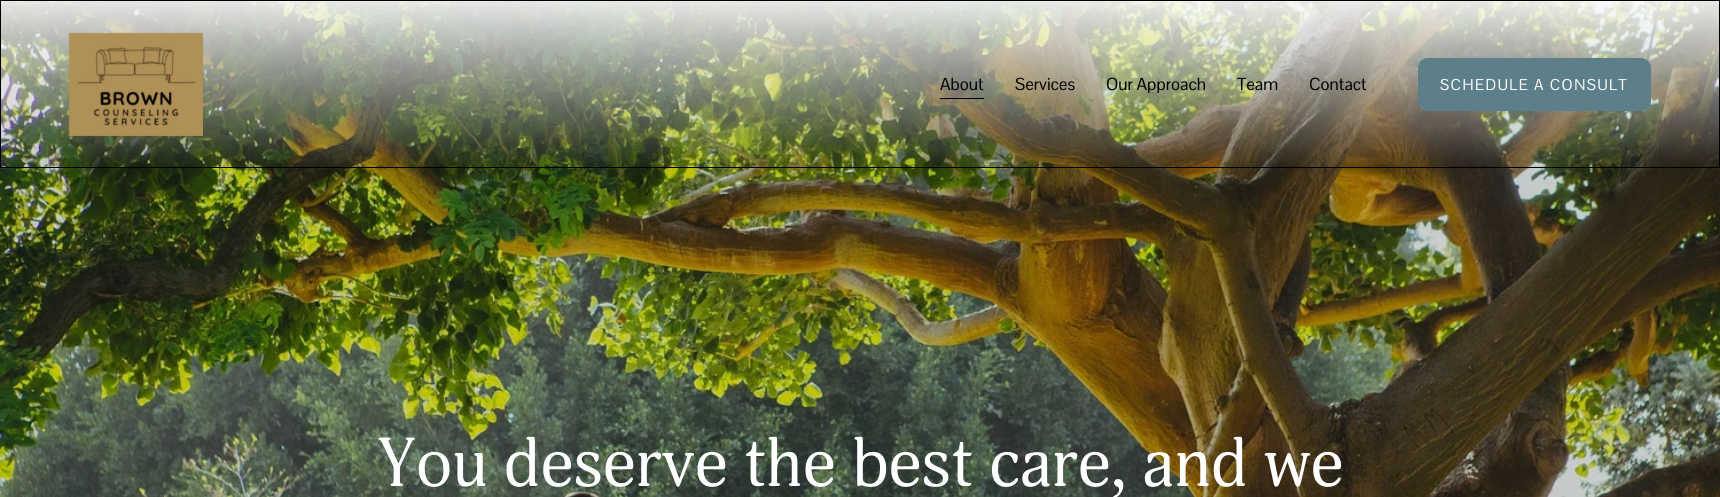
import math
import cairo



def draw_spaced(context, x, y, s, letter, word):
    context.move_to(x, y)
    for ch in s:
        context.show_text(ch)
        context.rel_move_to(letter + word * (ch == ' '), 0)


def rounded_rect(context, x, y, w, h, r):
    context.new_sub_path()
    for i, (u, v) in enumerate([(x + w - r, y + h - r), (x + r, y + h - r), (x + r, y + r), (x + w - r, y + r)]):
        context.arc(u, v, r, i * math.pi / 2, (i + 1) * math.pi / 2)
    context.close_path()


def draw_image(context, path, x, y, w, h):
    context.save()
    context.set_source_surface(cairo.ImageSurface.create_from_png(path), x, y)
    context.rectangle(x, y, w, h)
    context.fill()
    context.restore()


def draw(context):
    context.set_source_rgb(1, 1, 1)
    context.paint()
    draw_image(context, "images/2.png", 0, 1, 1720, 496)
    context.rectangle(0.5, 0.5, 1719, 167)
    context.set_source_rgb(0, 0, 0)
    context.set_line_width(1)
    context.stroke()
    draw_image(context, "images/1.png", 68, 32, 135, 104)
    context.rectangle(940, 98, 44, 1)
    context.fill()
    context.set_source_rgb(93 / 255, 127 / 255, 138 / 255)
    rounded_rect(context, 1418, 58, 233, 53, 10)
    context.fill()
    context.select_font_face("Pontano Sans")
    context.set_font_size(17)
    context.set_source_rgb(0, 0, 0)
    context.move_to(940, 90)
    context.show_text("About")
    context.move_to(1015, 90)
    context.show_text("Services")
    context.move_to(1106, 90)
    context.show_text("Our Approach")
    context.move_to(1237, 90)
    context.show_text("Team")
    context.move_to(1309, 90)
    context.show_text("Contact")
    context.set_font_size(15.25)
    context.set_source_rgb(1, 1, 1)
    draw_spaced(context, 1440, 90, "SCHEDULE A CONSULT", 1.5, 0)
    context.select_font_face("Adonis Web")
    context.set_font_size(68)
    context.move_to(377, 486)
    context.show_text("You deserve the best care, and we")


surface = cairo.ImageSurface(cairo.Format.RGB24, 1720, 497)
context = cairo.Context(surface)
options = cairo.FontOptions()
options.set_hint_metrics(cairo.HintMetrics.OFF)
options.set_hint_style(cairo.HintStyle.NONE)
context.set_font_options(options)
context.set_miter_limit(4)
draw(context)
surface.write_to_png("out.png")
